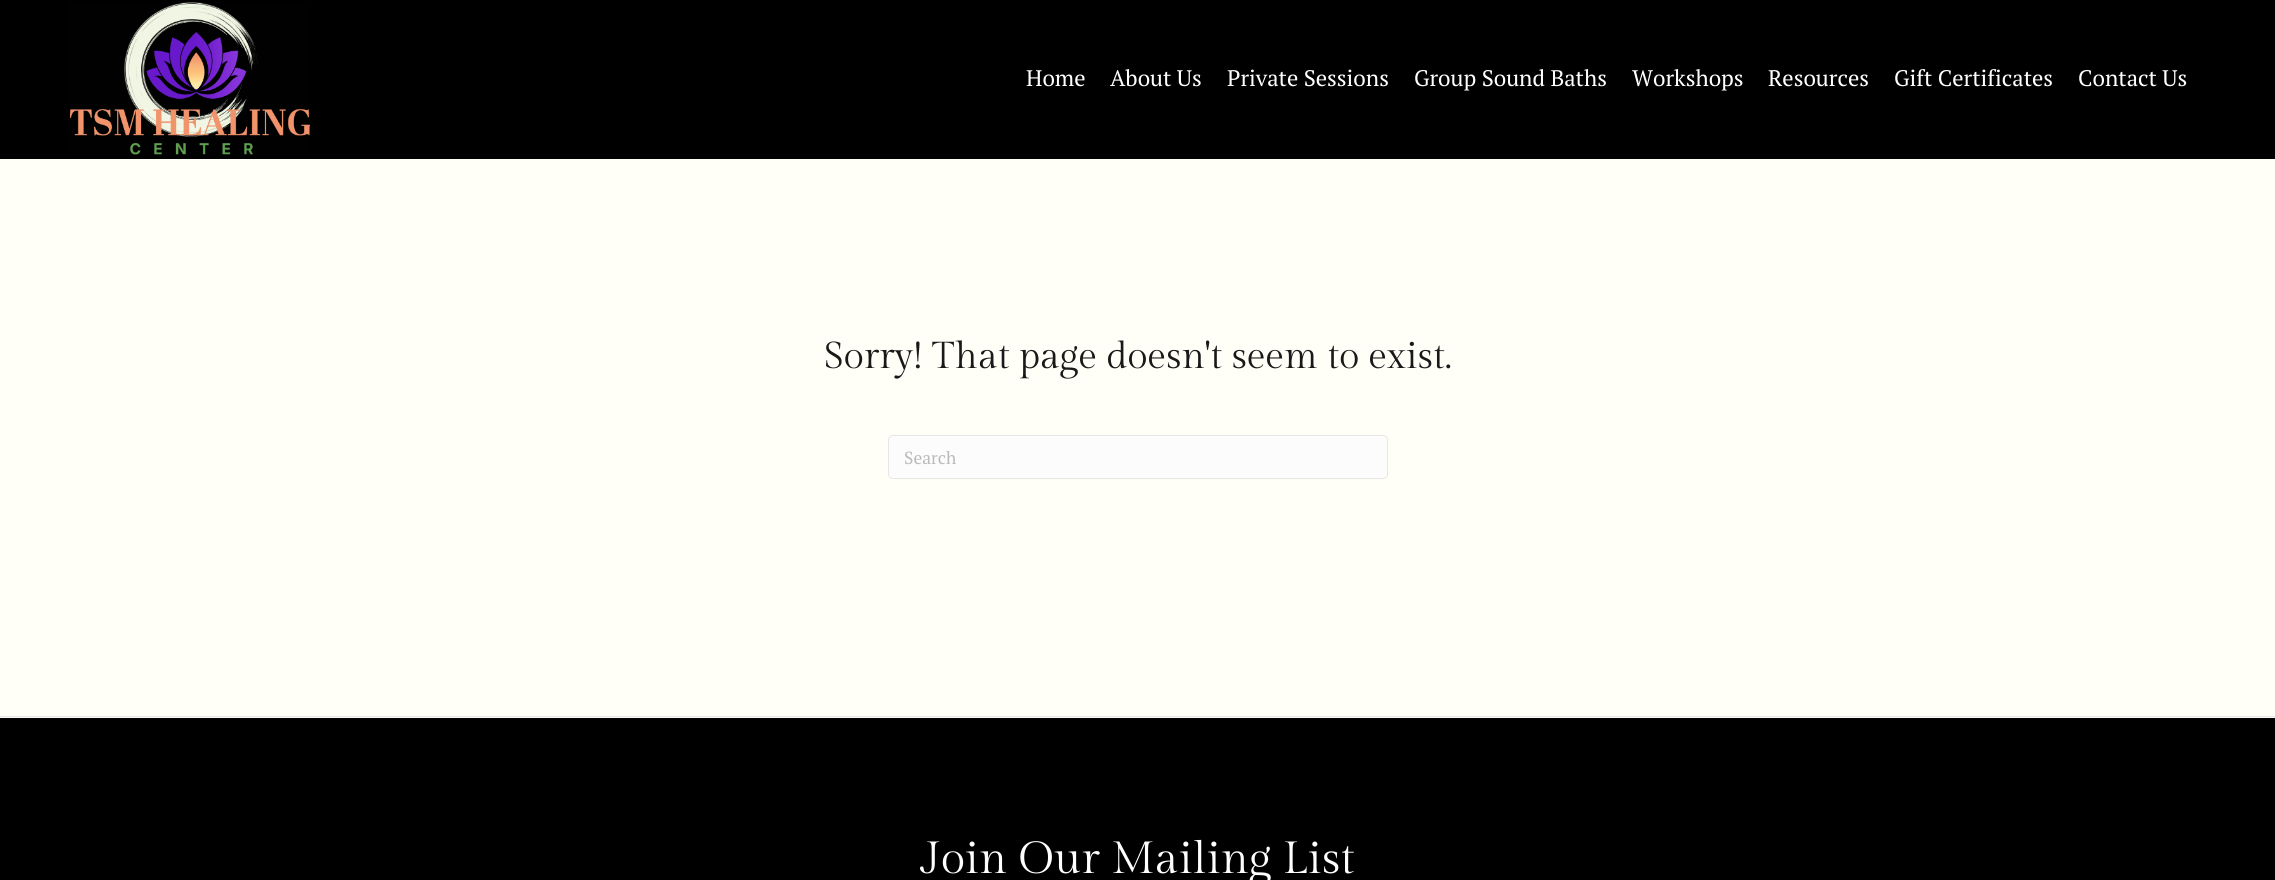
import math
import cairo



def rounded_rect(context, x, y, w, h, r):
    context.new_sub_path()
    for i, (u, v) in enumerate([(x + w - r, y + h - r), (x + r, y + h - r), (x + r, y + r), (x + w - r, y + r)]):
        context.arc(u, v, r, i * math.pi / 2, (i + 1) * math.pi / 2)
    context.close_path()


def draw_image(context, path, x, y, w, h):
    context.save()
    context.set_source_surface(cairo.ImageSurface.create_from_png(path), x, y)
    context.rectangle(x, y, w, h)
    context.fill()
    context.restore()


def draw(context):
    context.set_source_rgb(252 / 255, 251 / 255, 247 / 255)
    context.paint()
    context.set_source_rgb(0, 0, 0)
    context.rectangle(0, 0, 2275, 159)
    context.fill()
    draw_image(context, "images/1.png", 69, 2, 241, 153)
    context.set_source_rgb(1, 254 / 255, 247 / 255)
    context.rectangle(0, 159, 2275, 557)
    context.fill()
    context.set_source_rgb(252 / 255, 252 / 255, 252 / 255)
    rounded_rect(context, 889, 436, 497, 42, 4)
    context.fill()
    rounded_rect(context, 888.5, 435.5, 499, 43, 4.5)
    context.set_source_rgb(230 / 255, 230 / 255, 230 / 255)
    context.set_line_width(1)
    context.stroke()
    context.set_source_rgb(0, 0, 0)
    context.rectangle(0, 718, 2275, 162)
    context.fill()
    context.set_source_rgb(230 / 255, 230 / 255, 230 / 255)
    context.rectangle(0, 716, 2275, 1)
    context.fill()
    context.select_font_face("PT Serif")
    context.set_font_size(22.5)
    context.set_source_rgb(1, 1, 1)
    context.move_to(1026, 86)
    context.show_text("Home")
    context.move_to(1110, 86)
    context.show_text("About Us")
    context.move_to(1227, 86)
    context.show_text("Private Sessions")
    context.move_to(1414, 86)
    context.show_text("Group Sound Baths")
    context.move_to(1632, 86)
    context.show_text("Workshops")
    context.move_to(1768, 86)
    context.show_text("Resources")
    context.move_to(1894, 86)
    context.show_text("Gift Certificates")
    context.move_to(2078, 86)
    context.show_text("Contact Us")
    context.select_font_face("Gilda Display")
    context.set_font_size(37.5)
    context.set_source_rgb(25 / 255, 25 / 255, 25 / 255)
    context.move_to(824, 368)
    context.show_text("Sorry! That page doesn't seem to exist.")
    context.select_font_face("PT Serif")
    context.set_font_size(17.5)
    context.set_source_rgb(186 / 255, 186 / 255, 186 / 255)
    context.move_to(904, 464)
    context.show_text("Search")
    context.select_font_face("Gilda Display")
    context.set_font_size(45)
    context.set_source_rgb(1, 1, 1)
    context.move_to(920, 873)
    context.show_text("Join Our Mailing List")


surface = cairo.ImageSurface(cairo.Format.RGB24, 2275, 880)
context = cairo.Context(surface)
options = cairo.FontOptions()
options.set_hint_metrics(cairo.HintMetrics.OFF)
options.set_hint_style(cairo.HintStyle.NONE)
context.set_font_options(options)
context.set_miter_limit(4)
draw(context)
surface.write_to_png("out.png")
